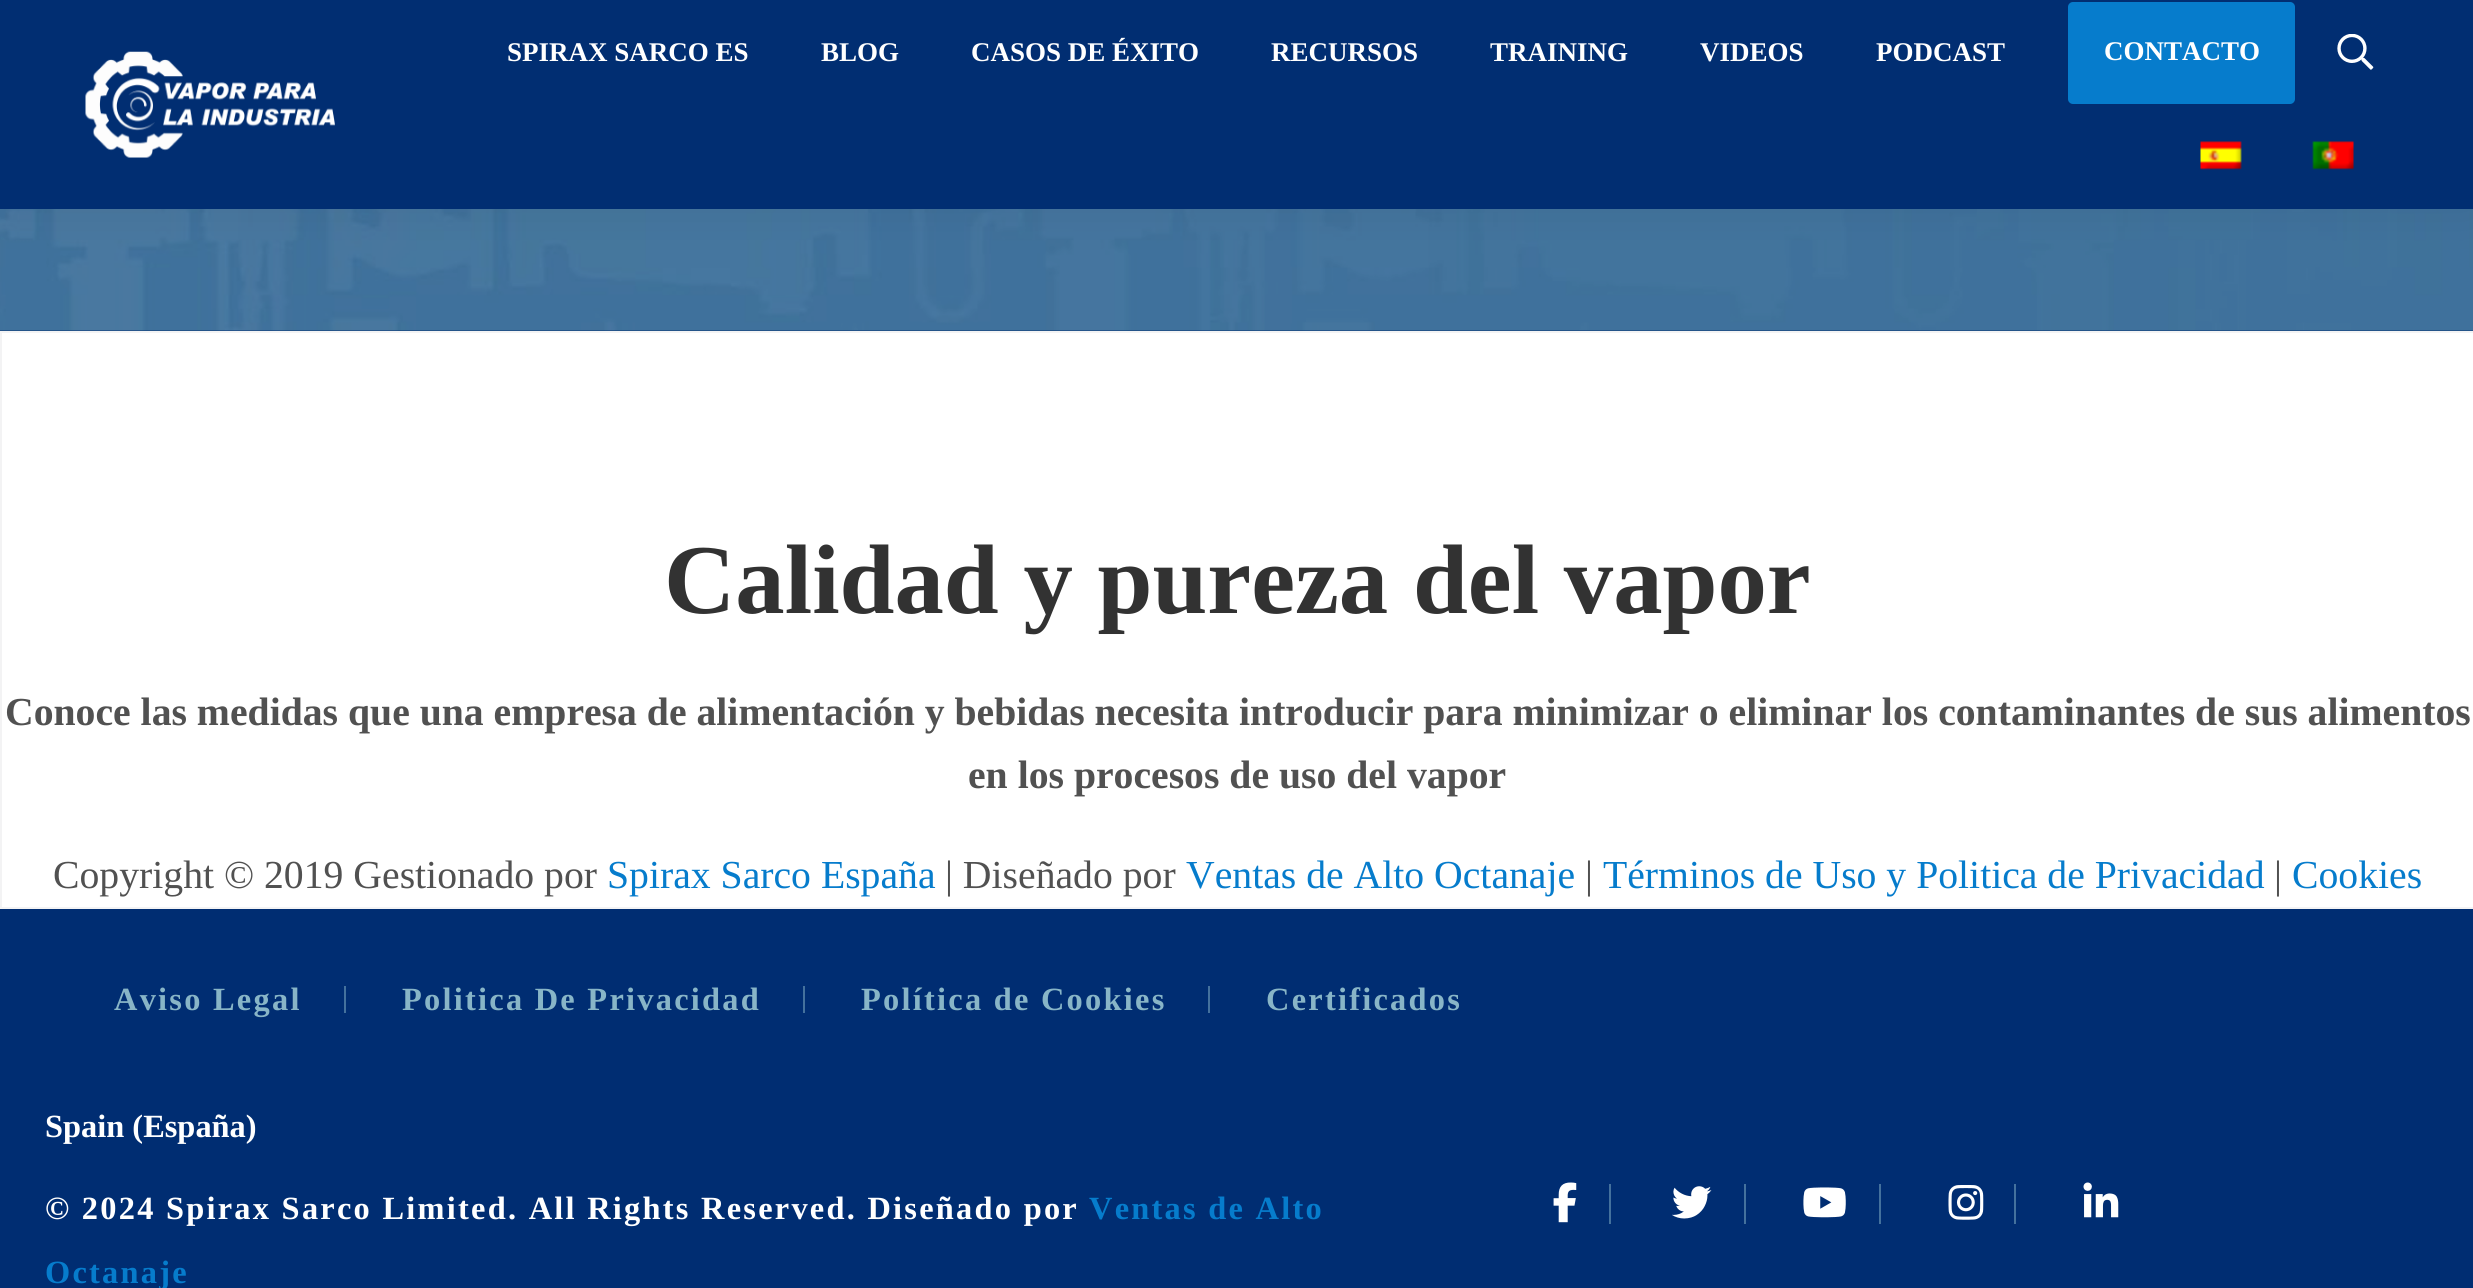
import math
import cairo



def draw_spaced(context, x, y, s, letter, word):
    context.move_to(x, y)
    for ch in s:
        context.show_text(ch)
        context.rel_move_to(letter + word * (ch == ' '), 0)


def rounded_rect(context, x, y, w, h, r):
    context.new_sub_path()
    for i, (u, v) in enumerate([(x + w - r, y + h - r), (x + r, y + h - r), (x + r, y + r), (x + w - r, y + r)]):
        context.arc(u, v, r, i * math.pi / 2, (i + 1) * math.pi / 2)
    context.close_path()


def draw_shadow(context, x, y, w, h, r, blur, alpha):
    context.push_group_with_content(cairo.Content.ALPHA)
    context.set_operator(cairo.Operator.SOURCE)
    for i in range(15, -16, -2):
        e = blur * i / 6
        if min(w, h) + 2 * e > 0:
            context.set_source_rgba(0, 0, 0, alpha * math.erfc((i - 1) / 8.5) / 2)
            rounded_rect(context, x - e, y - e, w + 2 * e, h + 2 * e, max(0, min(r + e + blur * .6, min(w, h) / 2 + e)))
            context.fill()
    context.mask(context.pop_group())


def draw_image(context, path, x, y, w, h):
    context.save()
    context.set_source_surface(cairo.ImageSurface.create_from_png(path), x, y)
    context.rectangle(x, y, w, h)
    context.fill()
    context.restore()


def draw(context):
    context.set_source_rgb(1, 1, 1)
    context.paint()
    context.set_source_rgb(1 / 255, 46 / 255, 114 / 255)
    context.rectangle(0, 330, 2473, 1)
    context.fill()
    draw_image(context, "images/5.png", 0, 209, 2473, 122)
    context.set_source_rgba(1 / 255, 46 / 255, 114 / 255, 0.41)
    context.rectangle(0, 209, 2473, 122)
    context.fill()
    context.set_source_rgb(0, 0, 0)
    draw_shadow(context, 0, 0, 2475, 209, 0, 27, 0.07)
    context.set_source_rgb(1 / 255, 46 / 255, 114 / 255)
    context.rectangle(0, 0, 2473, 209)
    context.fill()
    draw_image(context, "images/1.png", 85, 51, 250, 107)
    context.set_source_rgb(6 / 255, 124 / 255, 204 / 255)
    rounded_rect(context, 2068, 2, 227, 102, 5)
    context.fill()
    draw_image(context, "images/2.png", 2337, 34, 37, 36)
    draw_image(context, "images/3.png", 2200, 141, 42, 29)
    draw_image(context, "images/4.png", 2312, 141, 42, 29)
    context.rectangle(1, 332, 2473, 576)
    context.set_source_rgb(243 / 255, 243 / 255, 244 / 255)
    context.stroke()
    context.set_source_rgb(0, 45 / 255, 114 / 255)
    context.rectangle(0, 909, 2473, 379)
    context.fill()
    context.set_source_rgb(68 / 255, 113 / 255, 157 / 255)
    context.rectangle(344, 986, 2, 27)
    context.fill()
    context.rectangle(803, 986, 2, 27)
    context.fill()
    context.rectangle(1208, 986, 2, 27)
    context.fill()
    draw_image(context, "images/6.png", 1553, 1182, 24, 41)
    context.rectangle(1609, 1184, 2, 40)
    context.fill()
    draw_image(context, "images/7.png", 1672, 1186, 40, 33)
    context.rectangle(1744, 1184, 2, 40)
    context.fill()
    draw_image(context, "images/8.png", 1803, 1187, 43, 31)
    context.rectangle(1879, 1184, 2, 40)
    context.fill()
    draw_image(context, "images/9.png", 1948, 1185, 36, 35)
    context.rectangle(2014, 1184, 2, 40)
    context.fill()
    draw_image(context, "images/10.png", 2083, 1182, 36, 36)
    context.select_font_face("Liberation Serif", cairo.FontSlant.NORMAL, cairo.FontWeight.BOLD)
    context.set_font_size(27)
    context.set_source_rgb(1, 1, 1)
    context.move_to(507, 61)
    context.show_text("SPIRAX SARCO ES")
    context.move_to(821, 61)
    context.show_text("BLOG")
    context.move_to(971, 61)
    context.show_text("CASOS DE ÉXITO")
    context.move_to(1271, 61)
    context.show_text("RECURSOS")
    context.move_to(1490, 61)
    context.show_text("TRAINING")
    context.move_to(1700, 61)
    context.show_text("VIDEOS")
    context.move_to(1876, 61)
    context.show_text("PODCAST")
    context.move_to(2104, 60)
    context.show_text("CONTACTO")
    context.set_font_size(98.75)
    context.set_source_rgb(50 / 255, 50 / 255, 50 / 255)
    context.move_to(664, 613)
    context.show_text("Calidad y pureza del vapor")
    context.set_font_size(39.7)
    context.set_source_rgb(81 / 255, 81 / 255, 81 / 255)
    context.move_to(5, 725)
    context.show_text("Conoce las medidas que una empresa de alimentación y bebidas necesita introducir para minimizar o eliminar los contaminantes de sus alimentos")
    context.move_to(968, 788)
    context.show_text("en los procesos de uso del vapor")
    context.select_font_face("Liberation Serif")
    context.move_to(53, 888)
    context.show_text("Copyright © 2019 Gestionado por")
    context.set_source_rgb(6 / 255, 124 / 255, 204 / 255)
    context.move_to(607, 888)
    context.show_text("Spirax Sarco España")
    context.set_source_rgb(81 / 255, 81 / 255, 81 / 255)
    context.move_to(945, 888)
    context.show_text("| Diseñado por")
    context.set_source_rgb(6 / 255, 124 / 255, 204 / 255)
    context.move_to(1186, 888)
    context.show_text("Ventas de Alto Octanaje")
    context.set_source_rgb(81 / 255, 81 / 255, 81 / 255)
    context.move_to(1585, 888)
    context.show_text("|")
    context.set_source_rgb(6 / 255, 124 / 255, 204 / 255)
    context.move_to(1603, 888)
    context.show_text("Términos de Uso y Politica de Privacidad")
    context.set_source_rgb(81 / 255, 81 / 255, 81 / 255)
    context.move_to(2274, 888)
    context.show_text("|")
    context.set_source_rgb(6 / 255, 124 / 255, 204 / 255)
    context.move_to(2292, 888)
    context.show_text("Cookies")
    context.select_font_face("Liberation Serif", cairo.FontSlant.NORMAL, cairo.FontWeight.BOLD)
    context.set_font_size(32.4)
    context.set_source_rgb(136 / 255, 181 / 255, 199 / 255)
    draw_spaced(context, 114, 1010, "Aviso Legal", 2.25, 0)
    draw_spaced(context, 402, 1010, "Politica De Privacidad", 2.25, 0)
    draw_spaced(context, 861, 1010, "Política de Cookies", 2.25, 0)
    draw_spaced(context, 1266, 1010, "Certificados", 2.25, 0)
    context.set_source_rgb(1, 1, 1)
    context.move_to(45, 1137)
    context.show_text("Spain (España)")
    draw_spaced(context, 45, 1219, "© 2024 Spirax Sarco Limited. All Rights Reserved. Diseñado por", 2.25, 0)
    context.set_source_rgb(6 / 255, 124 / 255, 204 / 255)
    draw_spaced(context, 1089, 1219, "Ventas de Alto", 2.25, 0)
    draw_spaced(context, 45, 1283, "Octanaje", 2.25, 0)


surface = cairo.ImageSurface(cairo.Format.RGB24, 2473, 1288)
context = cairo.Context(surface)
options = cairo.FontOptions()
options.set_hint_metrics(cairo.HintMetrics.OFF)
options.set_hint_style(cairo.HintStyle.NONE)
context.set_font_options(options)
context.set_miter_limit(4)
draw(context)
surface.write_to_png("out.png")
